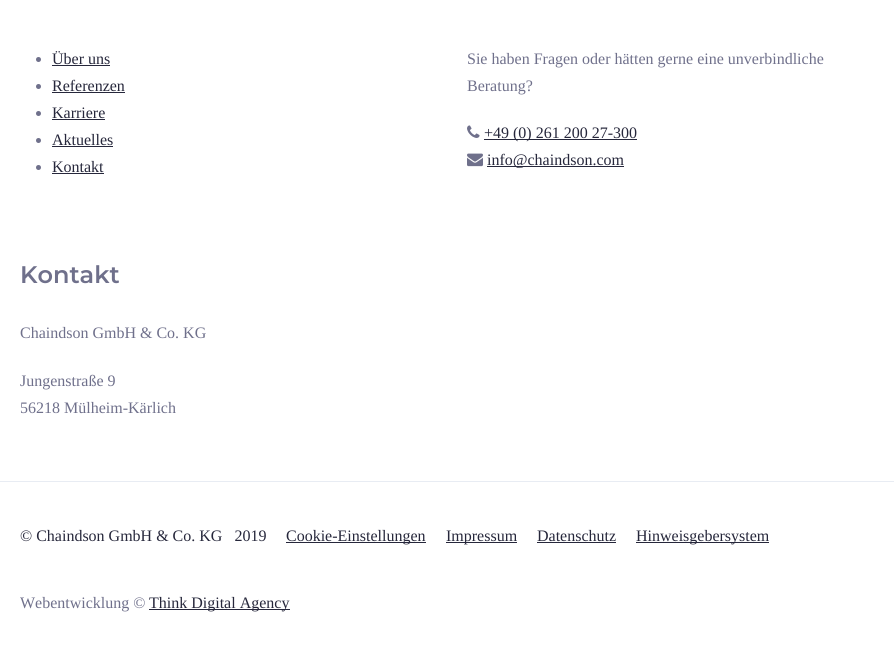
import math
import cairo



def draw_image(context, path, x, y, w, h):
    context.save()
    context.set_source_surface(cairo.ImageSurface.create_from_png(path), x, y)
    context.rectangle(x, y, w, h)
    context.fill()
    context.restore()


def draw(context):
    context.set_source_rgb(1, 1, 1)
    context.paint()
    context.set_source_rgb(111 / 255, 112 / 255, 139 / 255)
    context.arc(38.5, 59.5, 2.5, 0, 2 * math.pi)
    context.fill()
    context.set_source_rgb(38 / 255, 39 / 255, 59 / 255)
    context.rectangle(52, 65, 58, 1)
    context.fill()
    context.set_source_rgb(111 / 255, 112 / 255, 139 / 255)
    context.arc(38.5, 86.5, 2.5, 0, 2 * math.pi)
    context.fill()
    context.set_source_rgb(38 / 255, 39 / 255, 59 / 255)
    context.rectangle(52, 92, 73, 1)
    context.fill()
    context.set_source_rgb(111 / 255, 112 / 255, 139 / 255)
    context.arc(38.5, 113.5, 2.5, 0, 2 * math.pi)
    context.fill()
    context.set_source_rgb(38 / 255, 39 / 255, 59 / 255)
    context.rectangle(52, 119, 53, 1)
    context.fill()
    context.set_source_rgb(111 / 255, 112 / 255, 139 / 255)
    context.arc(38.5, 140.5, 2.5, 0, 2 * math.pi)
    context.fill()
    context.set_source_rgb(38 / 255, 39 / 255, 59 / 255)
    context.rectangle(52, 146, 61, 1)
    context.fill()
    context.set_source_rgb(111 / 255, 112 / 255, 139 / 255)
    context.arc(38.5, 167.5, 2.5, 0, 2 * math.pi)
    context.fill()
    context.set_source_rgb(38 / 255, 39 / 255, 59 / 255)
    context.rectangle(52, 173, 52, 1)
    context.fill()
    draw_image(context, "images/1.png", 467, 125, 13, 13)
    context.rectangle(484, 139, 153, 1)
    context.fill()
    draw_image(context, "images/2.png", 467, 153, 16, 14)
    context.rectangle(487, 166, 137, 1)
    context.fill()
    context.set_source_rgb(232 / 255, 236 / 255, 243 / 255)
    context.rectangle(0, 481, 894, 1)
    context.fill()
    context.set_source_rgb(38 / 255, 39 / 255, 59 / 255)
    context.rectangle(286, 542, 140, 1)
    context.fill()
    context.rectangle(446, 542, 71, 1)
    context.fill()
    context.rectangle(537, 542, 79, 1)
    context.fill()
    context.rectangle(636, 542, 133, 1)
    context.fill()
    context.rectangle(149, 609, 141, 1)
    context.fill()
    context.select_font_face("Liberation Serif")
    context.set_font_size(16)
    context.move_to(52, 64)
    context.show_text("Über uns")
    context.move_to(52, 91)
    context.show_text("Referenzen")
    context.move_to(52, 118)
    context.show_text("Karriere")
    context.move_to(52, 145)
    context.show_text("Aktuelles")
    context.move_to(52, 172)
    context.show_text("Kontakt")
    context.set_source_rgb(111 / 255, 112 / 255, 139 / 255)
    context.move_to(467, 64)
    context.show_text("Sie haben Fragen oder hätten gerne eine unverbindliche")
    context.move_to(467, 91)
    context.show_text("Beratung?")
    context.set_source_rgb(38 / 255, 39 / 255, 59 / 255)
    context.move_to(484, 138)
    context.show_text("+49 (0) 261 200 27-300")
    context.move_to(487, 165)
    context.show_text("info@chaindson.com")
    context.select_font_face("Montserrat SemiBold")
    context.set_font_size(24)
    context.set_source_rgb(111 / 255, 112 / 255, 139 / 255)
    context.move_to(20, 283)
    context.show_text("Kontakt")
    context.select_font_face("Liberation Serif")
    context.set_font_size(16)
    context.move_to(20, 338)
    context.show_text("Chaindson GmbH & Co. KG")
    context.move_to(20, 386)
    context.show_text("Jungenstraße 9")
    context.move_to(20, 413)
    context.show_text("56218 Mülheim-Kärlich")
    context.set_source_rgb(38 / 255, 39 / 255, 59 / 255)
    context.move_to(20, 541)
    context.show_text("© Chaindson GmbH & Co. KG   2019")
    context.move_to(286, 541)
    context.show_text("Cookie-Einstellungen")
    context.move_to(446, 541)
    context.show_text("Impressum")
    context.move_to(537, 541)
    context.show_text("Datenschutz")
    context.move_to(636, 541)
    context.show_text("Hinweisgebersystem")
    context.set_source_rgb(111 / 255, 112 / 255, 139 / 255)
    context.move_to(20, 608)
    context.show_text("Webentwicklung ©")
    context.set_source_rgb(38 / 255, 39 / 255, 59 / 255)
    context.move_to(149, 608)
    context.show_text("Think Digital Agency")


surface = cairo.ImageSurface(cairo.Format.RGB24, 894, 656)
context = cairo.Context(surface)
options = cairo.FontOptions()
options.set_hint_metrics(cairo.HintMetrics.OFF)
options.set_hint_style(cairo.HintStyle.NONE)
context.set_font_options(options)
context.set_miter_limit(4)
draw(context)
surface.write_to_png("out.png")
